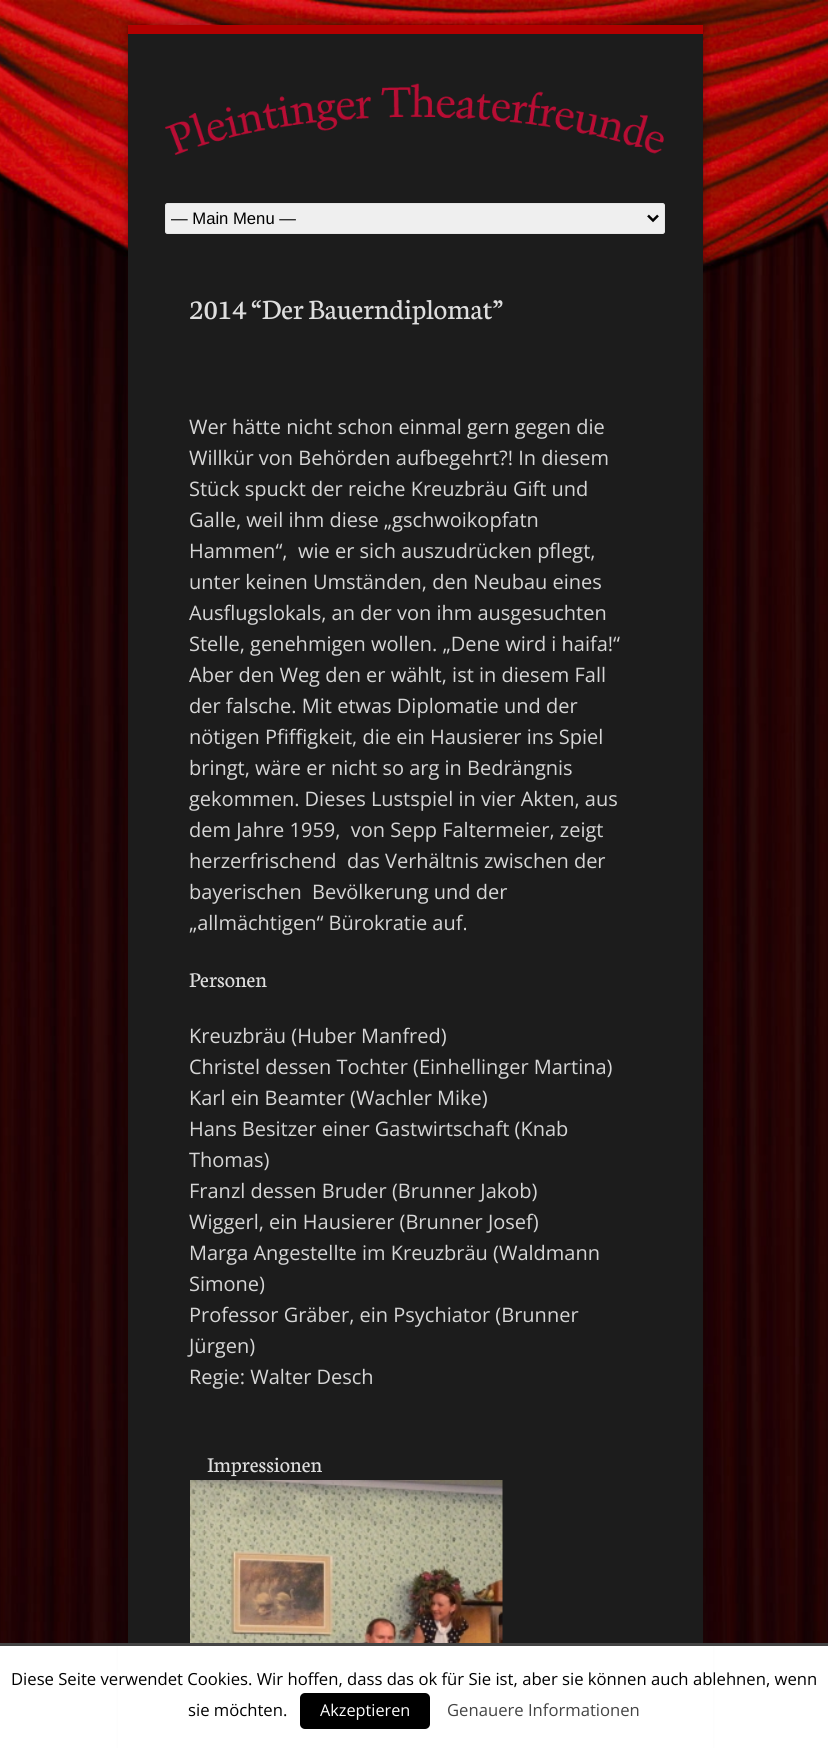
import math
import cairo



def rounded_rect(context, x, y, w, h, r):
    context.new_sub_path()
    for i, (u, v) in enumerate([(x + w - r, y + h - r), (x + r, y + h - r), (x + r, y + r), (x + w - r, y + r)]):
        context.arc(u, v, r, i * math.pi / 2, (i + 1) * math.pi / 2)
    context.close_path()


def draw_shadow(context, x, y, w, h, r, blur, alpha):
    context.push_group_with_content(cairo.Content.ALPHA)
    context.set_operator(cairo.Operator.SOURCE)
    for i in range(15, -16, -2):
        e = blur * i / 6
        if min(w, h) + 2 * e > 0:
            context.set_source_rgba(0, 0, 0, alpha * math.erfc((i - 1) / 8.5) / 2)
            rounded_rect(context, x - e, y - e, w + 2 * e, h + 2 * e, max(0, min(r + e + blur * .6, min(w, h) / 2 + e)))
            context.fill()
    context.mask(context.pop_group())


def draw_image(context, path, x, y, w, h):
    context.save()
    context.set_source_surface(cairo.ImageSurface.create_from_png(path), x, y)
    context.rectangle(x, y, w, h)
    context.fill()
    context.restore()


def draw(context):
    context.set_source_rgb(1, 1, 1)
    context.paint()
    draw_image(context, "images/1.png", 0, 0, 828, 1643)
    context.set_source_rgb(0, 0, 0)
    draw_shadow(context, 128, 25, 575, 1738, 0, 5, 0.4)
    context.set_source_rgb(179 / 255, 0, 0)
    context.rectangle(128, 25, 575, 9)
    context.fill()
    context.set_source_rgb(28 / 255, 28 / 255, 28 / 255)
    context.rectangle(128, 34, 575, 1609)
    context.fill()
    draw_image(context, "images/2.png", 165, 83, 499, 72)
    context.set_source_rgb(239 / 255, 239 / 255, 239 / 255)
    rounded_rect(context, 165.5, 203.5, 499, 30, 2)
    context.fill_preserve()
    context.set_source_rgb(230 / 255, 230 / 255, 230 / 255)
    context.set_line_width(1)
    context.stroke()
    context.new_path()
    context.move_to(648, 215.5)
    context.line_to(653, 220.5)
    context.line_to(658, 215.5)
    context.set_source_rgb(0, 0, 0)
    context.set_line_width(2.5)
    context.stroke()
    draw_image(context, "images/3.png", 190, 1480, 313, 163)
    context.set_source_rgb(1, 1, 1)
    context.rectangle(118, 1646, 595, 102)
    context.fill()
    context.set_source_rgb(68 / 255, 68 / 255, 68 / 255)
    context.rectangle(0, 1643, 828, 3)
    context.fill()
    context.set_source_rgb(0, 0, 0)
    rounded_rect(context, 300, 1693, 130, 36, 5)
    context.fill()
    context.select_font_face("Liberation Sans")
    context.set_font_size(16.65)
    context.move_to(171, 224)
    context.show_text("— Main Menu —")
    context.select_font_face("Neuton")
    context.set_font_size(30)
    context.set_source_rgb(222 / 255, 222 / 255, 222 / 255)
    context.move_to(189, 319)
    context.show_text("2014 “Der Bauerndiplomat”")
    context.select_font_face("Open Sans")
    context.set_font_size(20)
    context.set_source_rgb(214 / 255, 214 / 255, 214 / 255)
    context.move_to(189, 434)
    context.show_text("Wer hätte nicht schon einmal gern gegen die")
    context.move_to(189, 465)
    context.show_text("Willkür von Behörden aufbegehrt?! In diesem")
    context.move_to(189, 496)
    context.show_text("Stück spuckt der reiche Kreuzbräu Gift und")
    context.move_to(189, 527)
    context.show_text("Galle, weil ihm diese „gschwoikopfatn")
    context.move_to(189, 558)
    context.show_text("Hammen“,  wie er sich auszudrücken pflegt,")
    context.move_to(189, 589)
    context.show_text("unter keinen Umständen, den Neubau eines")
    context.move_to(189, 620)
    context.show_text("Ausflugslokals, an der von ihm ausgesuchten")
    context.move_to(189, 651)
    context.show_text("Stelle, genehmigen wollen. „Dene wird i haifa!“")
    context.move_to(189, 682)
    context.show_text("Aber den Weg den er wählt, ist in diesem Fall")
    context.move_to(189, 713)
    context.show_text("der falsche. Mit etwas Diplomatie und der")
    context.move_to(189, 744)
    context.show_text("nötigen Pfiffigkeit, die ein Hausierer ins Spiel")
    context.move_to(189, 775)
    context.show_text("bringt, wäre er nicht so arg in Bedrängnis")
    context.move_to(189, 806)
    context.show_text("gekommen. Dieses Lustspiel in vier Akten, aus")
    context.move_to(189, 837)
    context.show_text("dem Jahre 1959,  von Sepp Faltermeier, zeigt")
    context.move_to(189, 868)
    context.show_text("herzerfrischend  das Verhältnis zwischen der")
    context.move_to(189, 899)
    context.show_text("bayerischen  Bevölkerung und der")
    context.move_to(189, 930)
    context.show_text("„allmächtigen“ Bürokratie auf.")
    context.select_font_face("Neuton")
    context.set_font_size(22.5)
    context.set_source_rgb(222 / 255, 222 / 255, 222 / 255)
    context.move_to(189, 987)
    context.show_text("Personen")
    context.select_font_face("Open Sans")
    context.set_font_size(20)
    context.set_source_rgb(214 / 255, 214 / 255, 214 / 255)
    context.move_to(189, 1043)
    context.show_text("Kreuzbräu (Huber Manfred)")
    context.move_to(189, 1074)
    context.show_text("Christel dessen Tochter (Einhellinger Martina)")
    context.move_to(189, 1105)
    context.show_text("Karl ein Beamter (Wachler Mike)")
    context.move_to(189, 1136)
    context.show_text("Hans Besitzer einer Gastwirtschaft (Knab")
    context.move_to(189, 1167)
    context.show_text("Thomas)")
    context.move_to(189, 1198)
    context.show_text("Franzl dessen Bruder (Brunner Jakob)")
    context.move_to(189, 1229)
    context.show_text("Wiggerl, ein Hausierer (Brunner Josef)")
    context.move_to(189, 1260)
    context.show_text("Marga Angestellte im Kreuzbräu (Waldmann")
    context.move_to(189, 1291)
    context.show_text("Simone)")
    context.move_to(189, 1322)
    context.show_text("Professor Gräber, ein Psychiator (Brunner")
    context.move_to(189, 1353)
    context.show_text("Jürgen)")
    context.move_to(189, 1384)
    context.show_text("Regie: Walter Desch")
    context.select_font_face("Neuton")
    context.set_font_size(22.5)
    context.set_source_rgb(222 / 255, 222 / 255, 222 / 255)
    context.move_to(207, 1472)
    context.show_text("Impressionen")
    context.select_font_face("Open Sans")
    context.set_font_size(16.65)
    context.set_source_rgb(0, 0, 0)
    context.move_to(11, 1685)
    context.show_text("Diese Seite verwendet Cookies. Wir hoffen, dass das ok für Sie ist, aber sie können auch ablehnen, wenn")
    context.move_to(188, 1716)
    context.show_text("sie möchten.")
    context.set_font_size(16.25)
    context.set_source_rgb(1, 1, 1)
    context.move_to(320, 1716)
    context.show_text("Akzeptieren")
    context.set_font_size(16.65)
    context.set_source_rgb(68 / 255, 68 / 255, 68 / 255)
    context.move_to(447, 1716)
    context.show_text("Genauere Informationen")


surface = cairo.ImageSurface(cairo.Format.RGB24, 828, 1748)
context = cairo.Context(surface)
options = cairo.FontOptions()
options.set_hint_metrics(cairo.HintMetrics.OFF)
options.set_hint_style(cairo.HintStyle.NONE)
context.set_font_options(options)
context.set_miter_limit(4)
draw(context)
surface.write_to_png("out.png")
